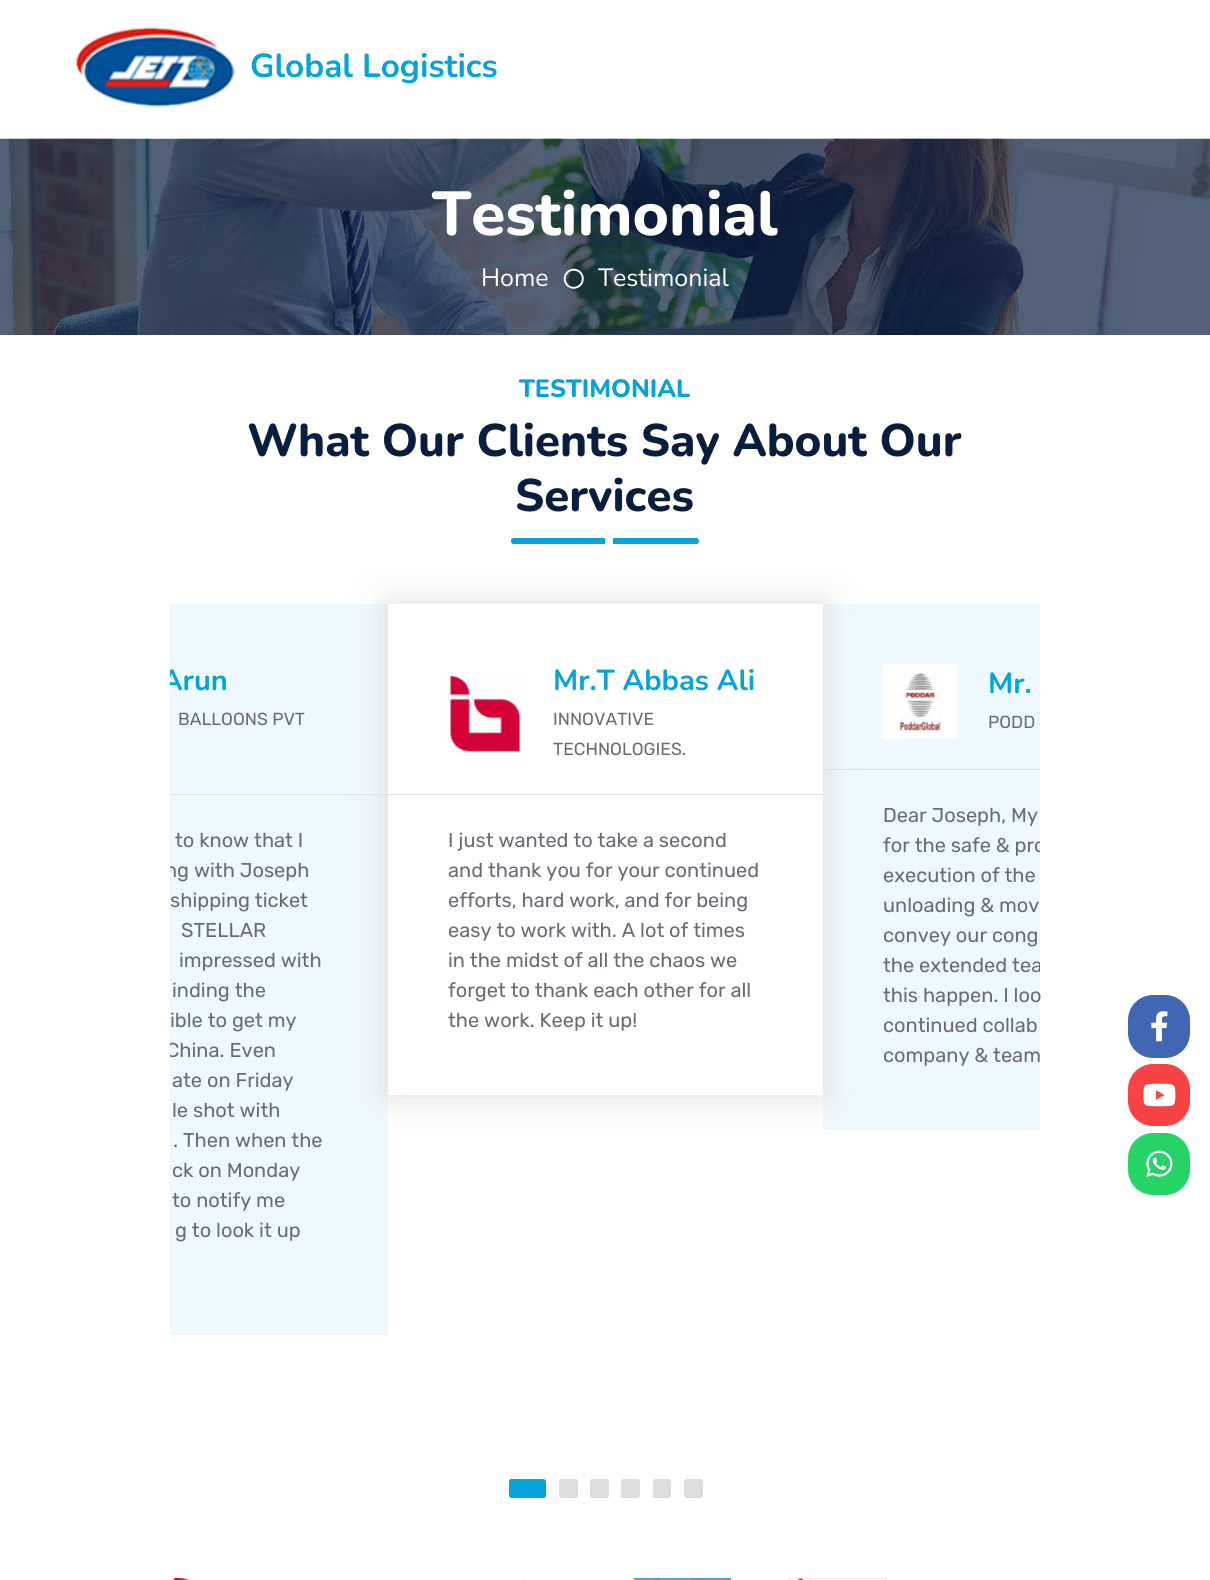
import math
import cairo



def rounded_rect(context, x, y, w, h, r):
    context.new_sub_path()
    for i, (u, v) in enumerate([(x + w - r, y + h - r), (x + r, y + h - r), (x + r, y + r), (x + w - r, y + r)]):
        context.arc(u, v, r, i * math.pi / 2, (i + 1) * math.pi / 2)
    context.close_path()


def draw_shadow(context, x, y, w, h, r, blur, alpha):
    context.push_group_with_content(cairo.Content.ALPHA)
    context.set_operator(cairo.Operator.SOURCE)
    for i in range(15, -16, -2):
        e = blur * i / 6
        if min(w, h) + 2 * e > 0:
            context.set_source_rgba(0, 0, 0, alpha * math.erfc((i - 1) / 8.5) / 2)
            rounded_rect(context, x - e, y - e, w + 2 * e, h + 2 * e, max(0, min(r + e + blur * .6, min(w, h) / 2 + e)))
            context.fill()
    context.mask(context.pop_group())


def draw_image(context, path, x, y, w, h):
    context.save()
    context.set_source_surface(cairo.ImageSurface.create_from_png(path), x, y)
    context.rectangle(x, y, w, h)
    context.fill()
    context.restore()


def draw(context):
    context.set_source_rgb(1, 1, 1)
    context.paint()
    draw_image(context, "images/1.png", 73, 26, 163, 82)
    draw_image(context, "images/2.png", 0, 138, 1210, 197)
    draw_image(context, "images/3.png", 563, 268, 21, 21)
    context.set_source_rgb(6 / 255, 163 / 255, 218 / 255)
    rounded_rect(context, 511, 538, 188, 6, 2.5)
    context.fill()
    context.set_source_rgb(1, 1, 1)
    context.rectangle(605, 538, 8, 6)
    context.fill()
    context.set_source_rgb(238 / 255, 249 / 255, 1)
    context.rectangle(170, 604, 218, 731)
    context.fill()
    context.set_source_rgb(222 / 255, 226 / 255, 230 / 255)
    context.rectangle(170, 794, 218, 1)
    context.fill()
    context.set_source_rgb(238 / 255, 249 / 255, 1)
    context.rectangle(823, 604, 217, 526)
    context.fill()
    context.set_source_rgb(222 / 255, 226 / 255, 230 / 255)
    context.rectangle(823, 769, 217, 1)
    context.fill()
    context.save()
    context.rectangle(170, 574, 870, 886)
    context.clip()
    context.set_source_rgb(221 / 255, 221 / 255, 221 / 255)
    draw_shadow(context, 388, 604, 435, 491, 0, 19, 1)
    context.restore()
    context.set_source_rgb(1, 1, 1)
    context.rectangle(388, 604, 435, 491)
    context.fill()
    context.set_source_rgb(222 / 255, 226 / 255, 230 / 255)
    context.rectangle(388, 794, 435, 1)
    context.fill()
    draw_image(context, "images/4.png", 447, 676, 76, 76)
    draw_image(context, "images/5.png", 882, 663, 76, 76)
    context.set_source_rgb(6 / 255, 163 / 255, 218 / 255)
    rounded_rect(context, 509, 1479, 37, 19, 2.5)
    context.fill()
    context.set_source_rgb(221 / 255, 221 / 255, 221 / 255)
    rounded_rect(context, 559, 1479, 19, 19, 2.5)
    context.fill()
    rounded_rect(context, 590, 1479, 19, 19, 2.5)
    context.fill()
    rounded_rect(context, 621, 1479, 19, 19, 2.5)
    context.fill()
    rounded_rect(context, 653, 1479, 18, 19, 2.5)
    context.fill()
    rounded_rect(context, 684, 1479, 19, 19, 2.5)
    context.fill()
    context.set_source_rgb(66 / 255, 103 / 255, 178 / 255)
    rounded_rect(context, 1128, 995, 62, 63, 25)
    context.fill()
    draw_image(context, "images/6.png", 1151, 1011, 17, 31)
    context.set_source_rgb(246 / 255, 67 / 255, 67 / 255)
    rounded_rect(context, 1128, 1064, 62, 62, 25)
    context.fill()
    draw_image(context, "images/7.png", 1143, 1083, 33, 24)
    context.set_source_rgb(37 / 255, 211 / 255, 102 / 255)
    rounded_rect(context, 1128, 1133, 62, 62, 25)
    context.fill()
    draw_image(context, "images/8.png", 1146, 1150, 27, 27)
    draw_image(context, "images/9.png", 173, 1578, 26, 2)
    draw_image(context, "images/10.png", 522, 1578, 3, 2)
    draw_image(context, "images/11.png", 633, 1578, 98, 2)
    draw_image(context, "images/12.png", 788, 1578, 98, 2)
    context.select_font_face("Nunito", cairo.FontSlant.NORMAL, cairo.FontWeight.BOLD)
    context.set_font_size(33.25)
    context.set_source_rgb(6 / 255, 163 / 255, 218 / 255)
    context.move_to(250, 77)
    context.show_text("Global Logistics")
    context.select_font_face("Nunito ExtraBold")
    context.set_font_size(62)
    context.set_source_rgb(1, 1, 1)
    context.move_to(432, 235)
    context.show_text("Testimonial")
    context.select_font_face("Nunito")
    context.set_font_size(25)
    context.move_to(481, 286)
    context.show_text("Home")
    context.move_to(598, 286)
    context.show_text("Testimonial")
    context.select_font_face("Nunito ExtraBold")
    context.set_source_rgb(6 / 255, 163 / 255, 218 / 255)
    context.move_to(519, 397)
    context.show_text("TESTIMONIAL")
    context.set_font_size(45.6)
    context.set_source_rgb(9 / 255, 30 / 255, 62 / 255)
    context.move_to(247, 456)
    context.show_text("What Our Clients Say About Our")
    context.move_to(515, 511)
    context.show_text("Services")
    context.save()
    context.rectangle(170, 574, 870, 886)
    context.clip()
    context.select_font_face("Nunito", cairo.FontSlant.NORMAL, cairo.FontWeight.BOLD)
    context.set_font_size(29)
    context.set_source_rgb(6 / 255, 163 / 255, 218 / 255)
    context.move_to(161, 690)
    context.show_text("Arun")
    context.restore()
    context.select_font_face("Rubik")
    context.set_font_size(17.5)
    context.set_source_rgb(107 / 255, 106 / 255, 117 / 255)
    context.move_to(178, 725)
    context.show_text("BALLOONS PVT")
    context.set_font_size(20)
    context.move_to(175, 847)
    context.show_text("to know that I")
    context.save()
    context.rectangle(170, 574, 870, 886)
    context.clip()
    context.move_to(165, 877)
    context.show_text("ng with Joseph")
    context.restore()
    context.move_to(170, 907)
    context.show_text("shipping ticket")
    context.move_to(181, 937)
    context.show_text("STELLAR")
    context.move_to(179, 967)
    context.show_text("impressed with")
    context.move_to(172, 997)
    context.show_text("inding the")
    context.move_to(170, 1027)
    context.show_text("ible to get my")
    context.save()
    context.rectangle(170, 574, 870, 886)
    context.clip()
    context.move_to(166, 1057)
    context.show_text("China. Even")
    context.restore()
    context.move_to(172, 1087)
    context.show_text("ate on Friday")
    context.move_to(172, 1117)
    context.show_text("le shot with")
    context.move_to(173, 1147)
    context.show_text(". Then when the")
    context.move_to(172, 1177)
    context.show_text("ck on Monday")
    context.move_to(172, 1207)
    context.show_text("to notify me")
    context.move_to(175, 1237)
    context.show_text("g to look it up")
    context.select_font_face("Nunito", cairo.FontSlant.NORMAL, cairo.FontWeight.BOLD)
    context.set_font_size(29)
    context.set_source_rgb(6 / 255, 163 / 255, 218 / 255)
    context.move_to(553, 690)
    context.show_text("Mr.T Abbas Ali")
    context.select_font_face("Rubik")
    context.set_font_size(17.5)
    context.set_source_rgb(107 / 255, 106 / 255, 117 / 255)
    context.move_to(553, 725)
    context.show_text("INNOVATIVE")
    context.move_to(553, 755)
    context.show_text("TECHNOLOGIES.")
    context.set_font_size(20)
    context.move_to(448, 847)
    context.show_text("I just wanted to take a second")
    context.move_to(448, 877)
    context.show_text("and thank you for your continued")
    context.move_to(448, 907)
    context.show_text("efforts, hard work, and for being")
    context.move_to(448, 937)
    context.show_text("easy to work with. A lot of times")
    context.move_to(448, 967)
    context.show_text("in the midst of all the chaos we")
    context.move_to(448, 997)
    context.show_text("forget to thank each other for all")
    context.move_to(448, 1027)
    context.show_text("the work. Keep it up!")
    context.select_font_face("Nunito", cairo.FontSlant.NORMAL, cairo.FontWeight.BOLD)
    context.set_font_size(29)
    context.set_source_rgb(6 / 255, 163 / 255, 218 / 255)
    context.move_to(988, 693)
    context.show_text("Mr.")
    context.select_font_face("Rubik")
    context.set_font_size(17.5)
    context.set_source_rgb(107 / 255, 106 / 255, 117 / 255)
    context.move_to(988, 728)
    context.show_text("PODD")
    context.set_font_size(20)
    context.move_to(883, 822)
    context.show_text("Dear Joseph, My")
    context.save()
    context.rectangle(170, 574, 870, 886)
    context.clip()
    context.move_to(883, 852)
    context.show_text("for the safe & pro")
    context.restore()
    context.move_to(883, 882)
    context.show_text("execution of the")
    context.move_to(883, 912)
    context.show_text("unloading & mov")
    context.move_to(883, 942)
    context.show_text("convey our cong")
    context.save()
    context.rectangle(170, 574, 870, 886)
    context.clip()
    context.move_to(883, 972)
    context.show_text("the extended tea")
    context.restore()
    context.move_to(883, 1002)
    context.show_text("this happen. I loo")
    context.move_to(883, 1032)
    context.show_text("continued collab")
    context.move_to(883, 1062)
    context.show_text("company & team")


surface = cairo.ImageSurface(cairo.Format.RGB24, 1210, 1580)
context = cairo.Context(surface)
options = cairo.FontOptions()
options.set_hint_metrics(cairo.HintMetrics.OFF)
options.set_hint_style(cairo.HintStyle.NONE)
context.set_font_options(options)
context.set_miter_limit(4)
draw(context)
surface.write_to_png("out.png")
